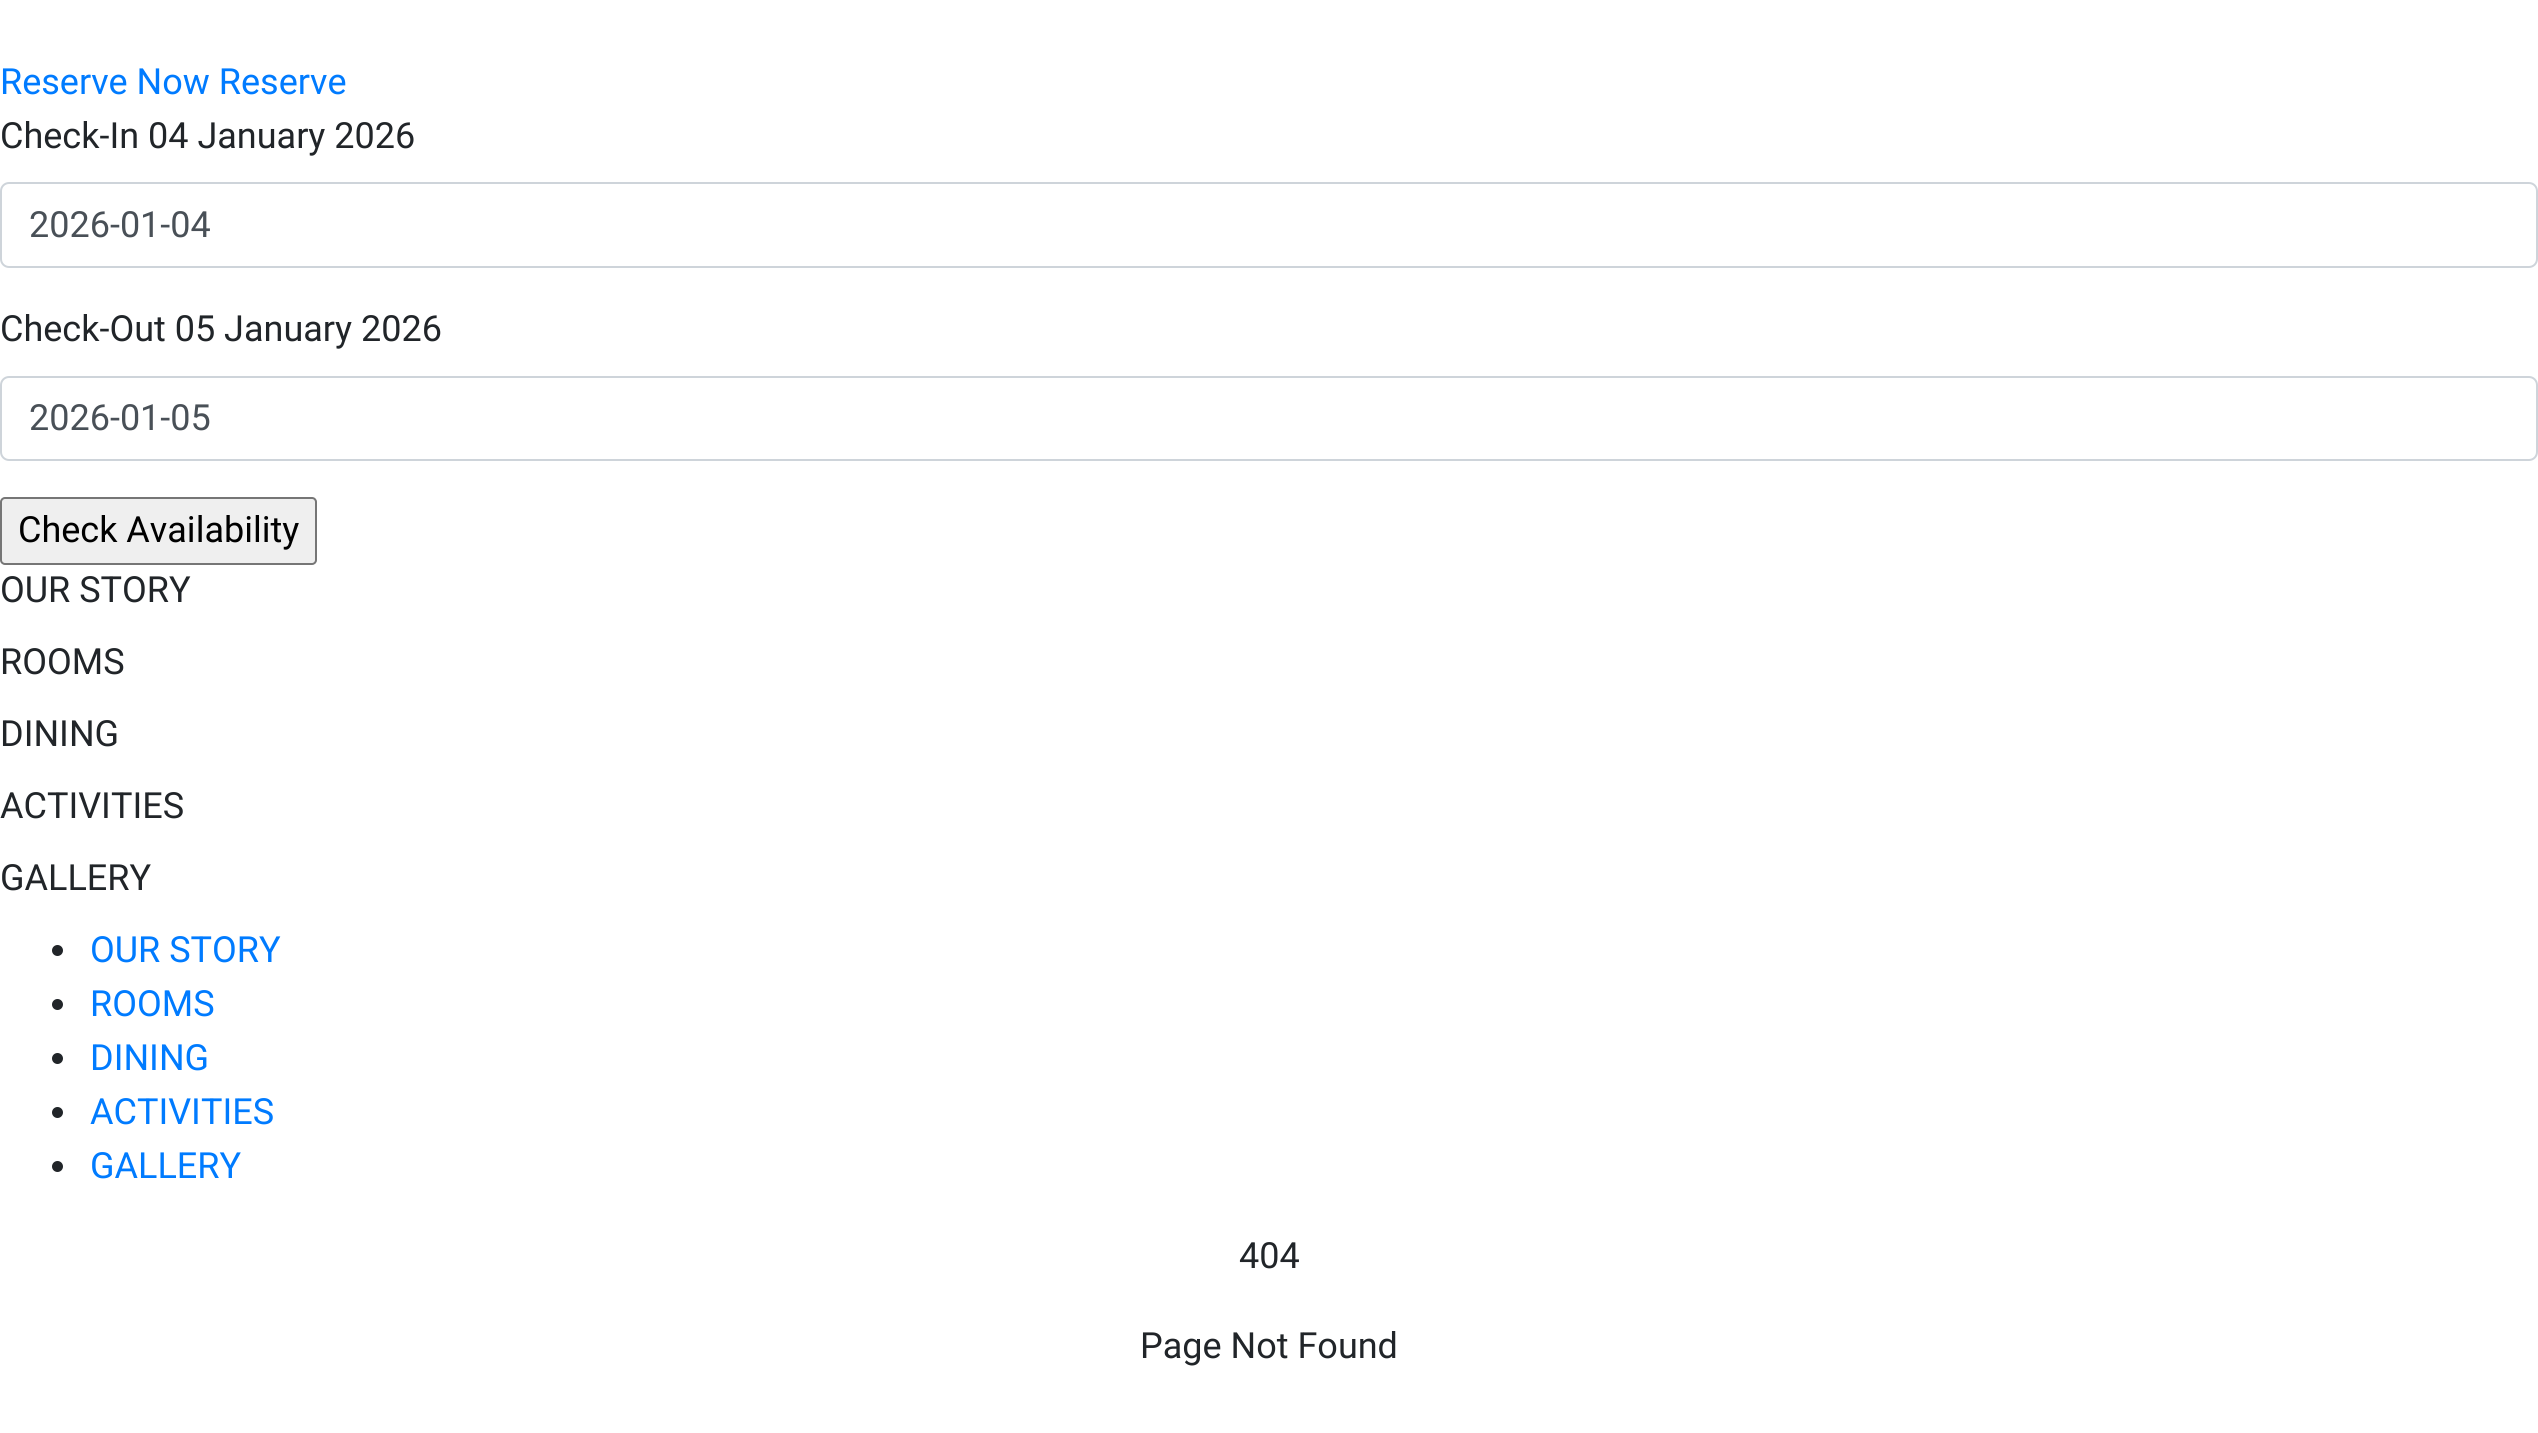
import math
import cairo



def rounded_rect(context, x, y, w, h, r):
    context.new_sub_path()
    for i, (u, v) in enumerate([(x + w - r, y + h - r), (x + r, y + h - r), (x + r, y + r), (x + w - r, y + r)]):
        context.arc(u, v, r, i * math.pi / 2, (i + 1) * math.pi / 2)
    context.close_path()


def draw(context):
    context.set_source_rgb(1, 1, 1)
    context.paint()
    rounded_rect(context, 1, 183, 2536, 84, 8)
    context.set_source_rgb(206 / 255, 212 / 255, 218 / 255)
    context.stroke()
    rounded_rect(context, 1, 377, 2536, 83, 8)
    context.stroke()
    context.set_source_rgb(239 / 255, 239 / 255, 239 / 255)
    rounded_rect(context, 1, 498, 315, 66, 4)
    context.fill_preserve()
    context.set_source_rgb(118 / 255, 118 / 255, 118 / 255)
    context.stroke()
    context.set_source_rgb(33 / 255, 37 / 255, 41 / 255)
    context.arc(57.5, 950.5, 5.5, 0, 2 * math.pi)
    context.fill()
    context.arc(57.5, 1004.5, 5.5, 0, 2 * math.pi)
    context.fill()
    context.arc(57.5, 1058.5, 5.5, 0, 2 * math.pi)
    context.fill()
    context.arc(57.5, 1112.5, 5.5, 0, 2 * math.pi)
    context.fill()
    context.arc(57.5, 1166.5, 5.5, 0, 2 * math.pi)
    context.fill()
    context.select_font_face("Roboto")
    context.set_font_size(36)
    context.set_source_rgb(0, 123 / 255, 1)
    context.move_to(0, 94)
    context.show_text("Reserve Now Reserve")
    context.set_source_rgb(33 / 255, 37 / 255, 41 / 255)
    context.move_to(0, 148)
    context.show_text("Check-In 04 January 2026")
    context.set_source_rgb(73 / 255, 80 / 255, 87 / 255)
    context.move_to(29, 237)
    context.show_text("2026-01-04")
    context.set_source_rgb(33 / 255, 37 / 255, 41 / 255)
    context.move_to(0, 341)
    context.show_text("Check-Out 05 January 2026")
    context.set_source_rgb(73 / 255, 80 / 255, 87 / 255)
    context.move_to(29, 430)
    context.show_text("2026-01-05")
    context.set_source_rgb(0, 0, 0)
    context.move_to(18, 542)
    context.show_text("Check Availability")
    context.set_source_rgb(33 / 255, 37 / 255, 41 / 255)
    context.move_to(0, 602)
    context.show_text("OUR STORY")
    context.move_to(0, 674)
    context.show_text("ROOMS")
    context.move_to(0, 746)
    context.show_text("DINING")
    context.move_to(0, 818)
    context.show_text("ACTIVITIES")
    context.move_to(0, 890)
    context.show_text("GALLERY")
    context.set_source_rgb(0, 123 / 255, 1)
    context.move_to(90, 962)
    context.show_text("OUR STORY")
    context.move_to(90, 1016)
    context.show_text("ROOMS")
    context.move_to(90, 1070)
    context.show_text("DINING")
    context.move_to(90, 1124)
    context.show_text("ACTIVITIES")
    context.move_to(90, 1178)
    context.show_text("GALLERY")
    context.set_source_rgb(33 / 255, 37 / 255, 41 / 255)
    context.move_to(1239, 1268)
    context.show_text("404")
    context.move_to(1140, 1358)
    context.show_text("Page Not Found")


surface = cairo.ImageSurface(cairo.Format.RGB24, 2538, 1433)
context = cairo.Context(surface)
options = cairo.FontOptions()
options.set_hint_metrics(cairo.HintMetrics.OFF)
options.set_hint_style(cairo.HintStyle.NONE)
context.set_font_options(options)
context.set_miter_limit(4)
draw(context)
surface.write_to_png("out.png")
